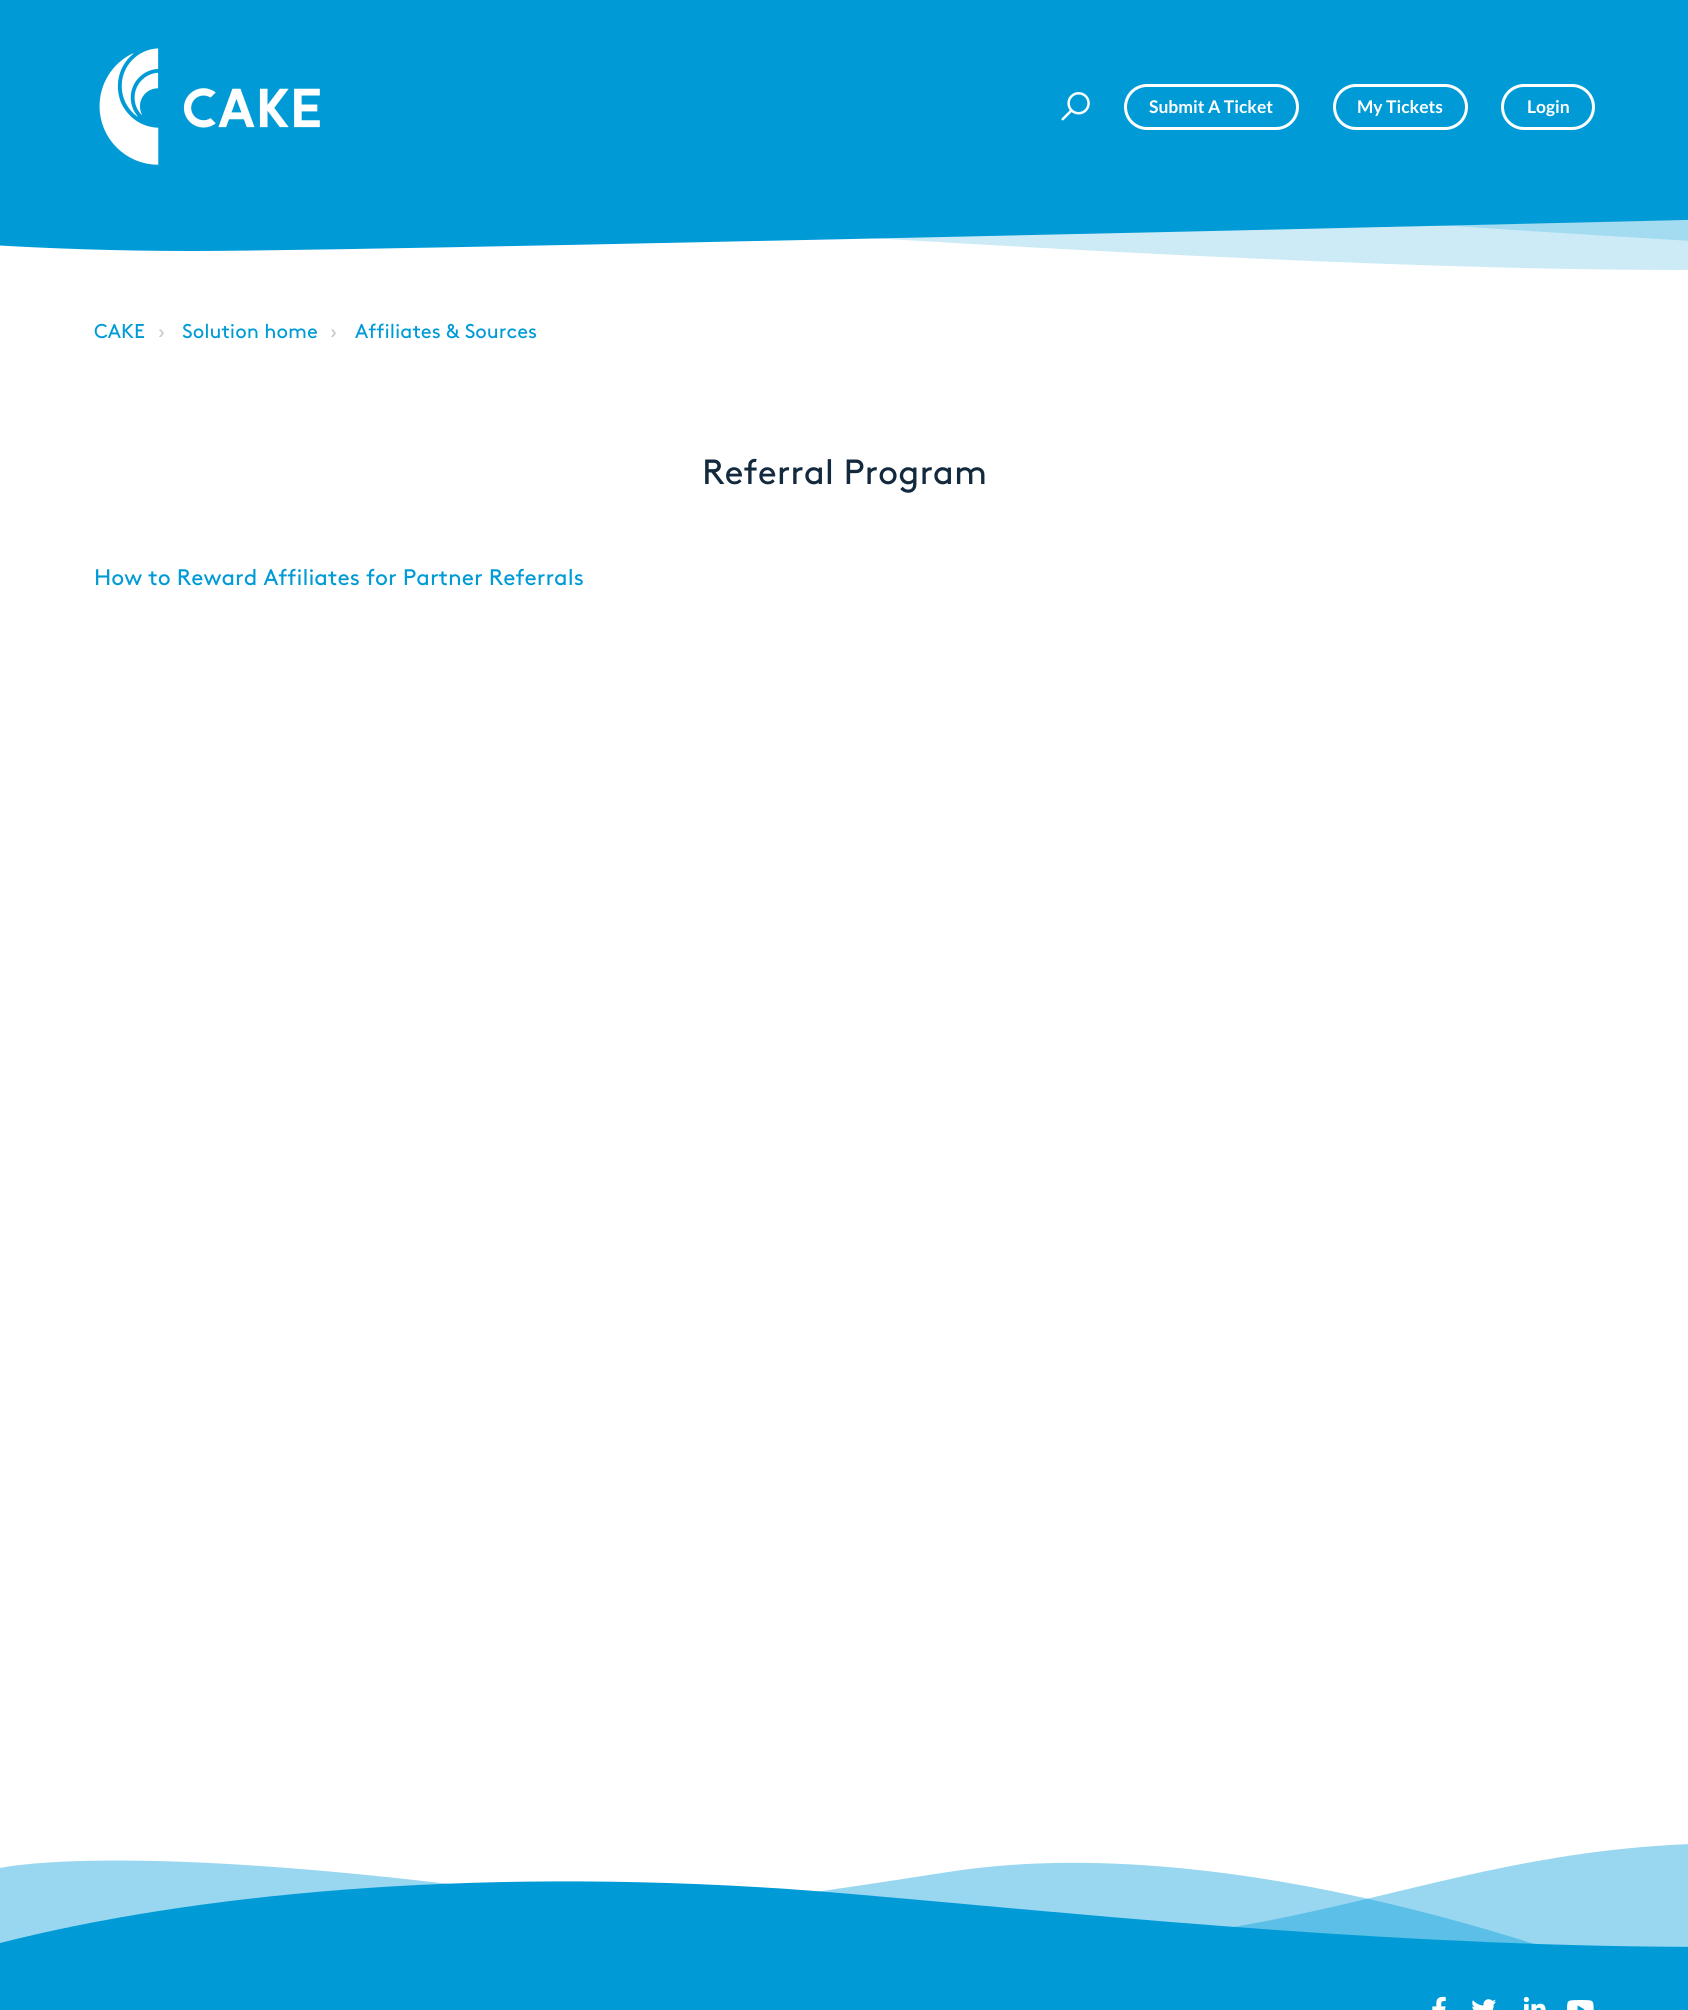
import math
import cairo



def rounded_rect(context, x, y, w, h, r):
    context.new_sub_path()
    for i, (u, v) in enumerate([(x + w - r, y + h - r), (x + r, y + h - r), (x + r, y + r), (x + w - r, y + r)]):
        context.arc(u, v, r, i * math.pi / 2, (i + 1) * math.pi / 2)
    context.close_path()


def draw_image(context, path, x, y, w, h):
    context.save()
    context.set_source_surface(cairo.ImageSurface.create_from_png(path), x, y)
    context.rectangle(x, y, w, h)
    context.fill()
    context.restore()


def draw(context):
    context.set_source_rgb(1, 1, 1)
    context.paint()
    context.set_source_rgb(0, 155 / 255, 215 / 255)
    context.rectangle(0, 0, 1688, 211)
    context.fill()
    draw_image(context, "images/1.png", 99, 48, 221, 117)
    draw_image(context, "images/2.png", 1061, 92, 29, 29)
    rounded_rect(context, 1125.5, 85.5, 172, 43, 21.5)
    context.set_source_rgb(1, 1, 1)
    context.set_line_width(3)
    context.stroke()
    rounded_rect(context, 1334.5, 85.5, 132, 43, 21.5)
    context.stroke()
    rounded_rect(context, 1502.5, 85.5, 91, 43, 21.5)
    context.stroke()
    context.set_source_rgb(0, 155 / 255, 215 / 255)
    context.new_path()
    context.move_to(192, 251)
    context.curve_to(416, 251, 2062, 211, 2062, 211)
    context.line_to(-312, 211)
    context.curve_to(-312, 211, -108, 251, 192, 251)
    context.close_path()
    context.fill()
    context.save()
    context.rectangle(0, 211, 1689, 59)
    context.clip()
    context.set_source_rgba(0, 155 / 255, 215 / 255, 0.2)
    context.new_path()
    context.move_to(1678, 270)
    context.curve_to(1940, 270, 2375, 175, 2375, 175)
    context.line_to(0, 175)
    context.curve_to(0, 175, 1121, 270, 1678, 270)
    context.close_path()
    context.fill()
    context.new_path()
    context.move_to(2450, 270)
    context.curve_to(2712, 270, 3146, 175, 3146, 175)
    context.line_to(771, 175)
    context.curve_to(771, 175, 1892, 270, 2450, 270)
    context.close_path()
    context.fill()
    context.restore()
    context.rectangle(0, 1966, 1688, 44)
    context.fill()
    context.save()
    context.rectangle(0, 1841, 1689, 125)
    context.clip()
    context.set_source_rgba(0, 156 / 255, 217 / 255, 0.4)
    context.new_path()
    context.move_to(-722, 1934)
    context.curve_to(-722, 1934, -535, 1982, -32, 1959)
    context.curve_to(472, 1937, 634, 1921, 948, 1872)
    context.curve_to(1261, 1823, 1652, 1986, 1652, 1986)
    context.line_to(1652, 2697)
    context.line_to(-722, 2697)
    context.close_path()
    context.fill()
    context.new_path()
    context.move_to(0, 1868)
    context.curve_to(0, 1868, 152, 1832, 691, 1918)
    context.curve_to(1229, 2005, 1357, 1864, 1670, 1845)
    context.curve_to(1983, 1826, 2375, 1905, 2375, 1905)
    context.line_to(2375, 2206)
    context.line_to(0, 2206)
    context.close_path()
    context.fill()
    context.set_source_rgb(0, 155 / 255, 215 / 255)
    context.new_path()
    context.move_to(0, 1943)
    context.curve_to(189, 1895, 463, 1867, 788, 1889)
    context.curve_to(1113, 1912, 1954, 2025, 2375, 1854)
    context.line_to(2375, 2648)
    context.line_to(0, 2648)
    context.close_path()
    context.fill()
    context.restore()
    draw_image(context, "images/3.png", 1432, 1996, 14, 14)
    draw_image(context, "images/4.png", 1472, 1999, 25, 11)
    draw_image(context, "images/5.png", 1523, 1996, 23, 14)
    draw_image(context, "images/6.png", 1567, 2000, 27, 10)
    context.select_font_face("Lato", cairo.FontSlant.NORMAL, cairo.FontWeight.BOLD)
    context.set_font_size(17.5)
    context.set_source_rgb(1, 1, 1)
    context.move_to(1149, 113)
    context.show_text("Submit A Ticket")
    context.move_to(1357, 113)
    context.show_text("My Tickets")
    context.move_to(1527, 113)
    context.show_text("Login")
    context.select_font_face("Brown")
    context.set_font_size(20)
    context.set_source_rgb(0, 155 / 255, 215 / 255)
    context.move_to(94, 338)
    context.show_text("CAKE")
    context.set_source_rgb(204 / 255, 204 / 255, 204 / 255)
    context.move_to(158, 338)
    context.show_text("›")
    context.set_source_rgb(0, 155 / 255, 215 / 255)
    context.move_to(182, 338)
    context.show_text("Solution home")
    context.set_source_rgb(204 / 255, 204 / 255, 204 / 255)
    context.move_to(330, 338)
    context.show_text("›")
    context.set_source_rgb(0, 155 / 255, 215 / 255)
    context.move_to(355, 338)
    context.show_text("Affiliates & Sources")
    context.set_font_size(35)
    context.set_source_rgb(19 / 255, 41 / 255, 62 / 255)
    context.move_to(702, 484)
    context.show_text("Referral Program")
    context.set_font_size(22.5)
    context.set_source_rgb(0, 155 / 255, 215 / 255)
    context.move_to(94, 585)
    context.show_text("How to Reward Affiliates for Partner Referrals")


surface = cairo.ImageSurface(cairo.Format.RGB24, 1688, 2010)
context = cairo.Context(surface)
options = cairo.FontOptions()
options.set_hint_metrics(cairo.HintMetrics.OFF)
options.set_hint_style(cairo.HintStyle.NONE)
context.set_font_options(options)
context.set_miter_limit(4)
draw(context)
surface.write_to_png("out.png")
